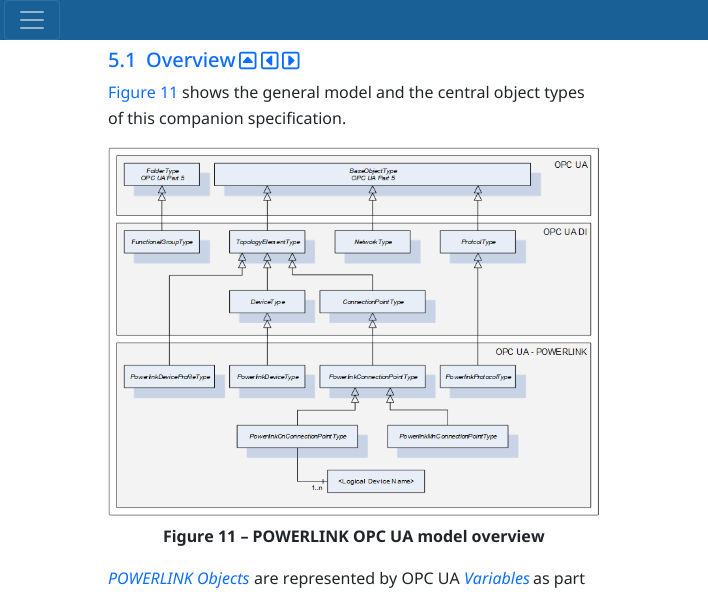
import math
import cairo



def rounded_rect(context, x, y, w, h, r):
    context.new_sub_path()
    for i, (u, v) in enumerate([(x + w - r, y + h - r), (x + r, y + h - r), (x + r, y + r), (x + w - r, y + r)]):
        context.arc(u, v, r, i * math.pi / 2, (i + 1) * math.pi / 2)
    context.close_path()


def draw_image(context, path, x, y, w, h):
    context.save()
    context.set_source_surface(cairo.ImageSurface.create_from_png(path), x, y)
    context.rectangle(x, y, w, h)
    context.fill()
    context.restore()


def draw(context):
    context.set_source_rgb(1, 1, 1)
    context.paint()
    context.set_source_rgb(25 / 255, 96 / 255, 150 / 255)
    context.rectangle(0, 0, 708, 40)
    context.fill()
    rounded_rect(context, 4.5, 0.5, 55, 39, 3.5)
    context.set_source_rgb(48 / 255, 112 / 255, 161 / 255)
    context.set_line_width(1)
    context.stroke()
    draw_image(context, "images/1.png", 20, 11, 24, 18)
    draw_image(context, "images/2.png", 239, 51, 18, 19)
    draw_image(context, "images/3.png", 261, 51, 18, 19)
    draw_image(context, "images/4.png", 282, 51, 18, 19)
    draw_image(context, "images/5.png", 108, 147, 491, 369)
    context.select_font_face("Noto Sans Medium")
    context.set_font_size(20)
    context.set_source_rgb(13 / 255, 110 / 255, 253 / 255)
    context.move_to(108, 67)
    context.show_text("5.1")
    context.move_to(146, 67)
    context.show_text("Overview")
    context.select_font_face("Noto Sans")
    context.set_font_size(16)
    context.move_to(108, 98)
    context.show_text("Figure 11")
    context.set_source_rgb(33 / 255, 37 / 255, 41 / 255)
    context.move_to(182, 98)
    context.show_text("shows the general model and the central object types")
    context.move_to(108, 124)
    context.show_text("of this companion specification.")
    context.select_font_face("Noto Sans", cairo.FontSlant.NORMAL, cairo.FontWeight.BOLD)
    context.move_to(163, 542)
    context.show_text("Figure 11 – POWERLINK OPC UA model overview")
    context.select_font_face("Noto Sans", cairo.FontSlant.ITALIC)
    context.set_source_rgb(13 / 255, 110 / 255, 253 / 255)
    context.move_to(108, 584)
    context.show_text("POWERLINK Objects")
    context.select_font_face("Noto Sans")
    context.set_source_rgb(33 / 255, 37 / 255, 41 / 255)
    context.move_to(254, 584)
    context.show_text("are represented by OPC UA")
    context.select_font_face("Noto Sans", cairo.FontSlant.ITALIC)
    context.set_source_rgb(13 / 255, 110 / 255, 253 / 255)
    context.move_to(464, 584)
    context.show_text("Variables")
    context.select_font_face("Noto Sans")
    context.set_source_rgb(33 / 255, 37 / 255, 41 / 255)
    context.move_to(533, 584)
    context.show_text("as part")


surface = cairo.ImageSurface(cairo.Format.RGB24, 708, 603)
context = cairo.Context(surface)
options = cairo.FontOptions()
options.set_hint_metrics(cairo.HintMetrics.OFF)
options.set_hint_style(cairo.HintStyle.NONE)
context.set_font_options(options)
context.set_miter_limit(4)
draw(context)
surface.write_to_png("out.png")
